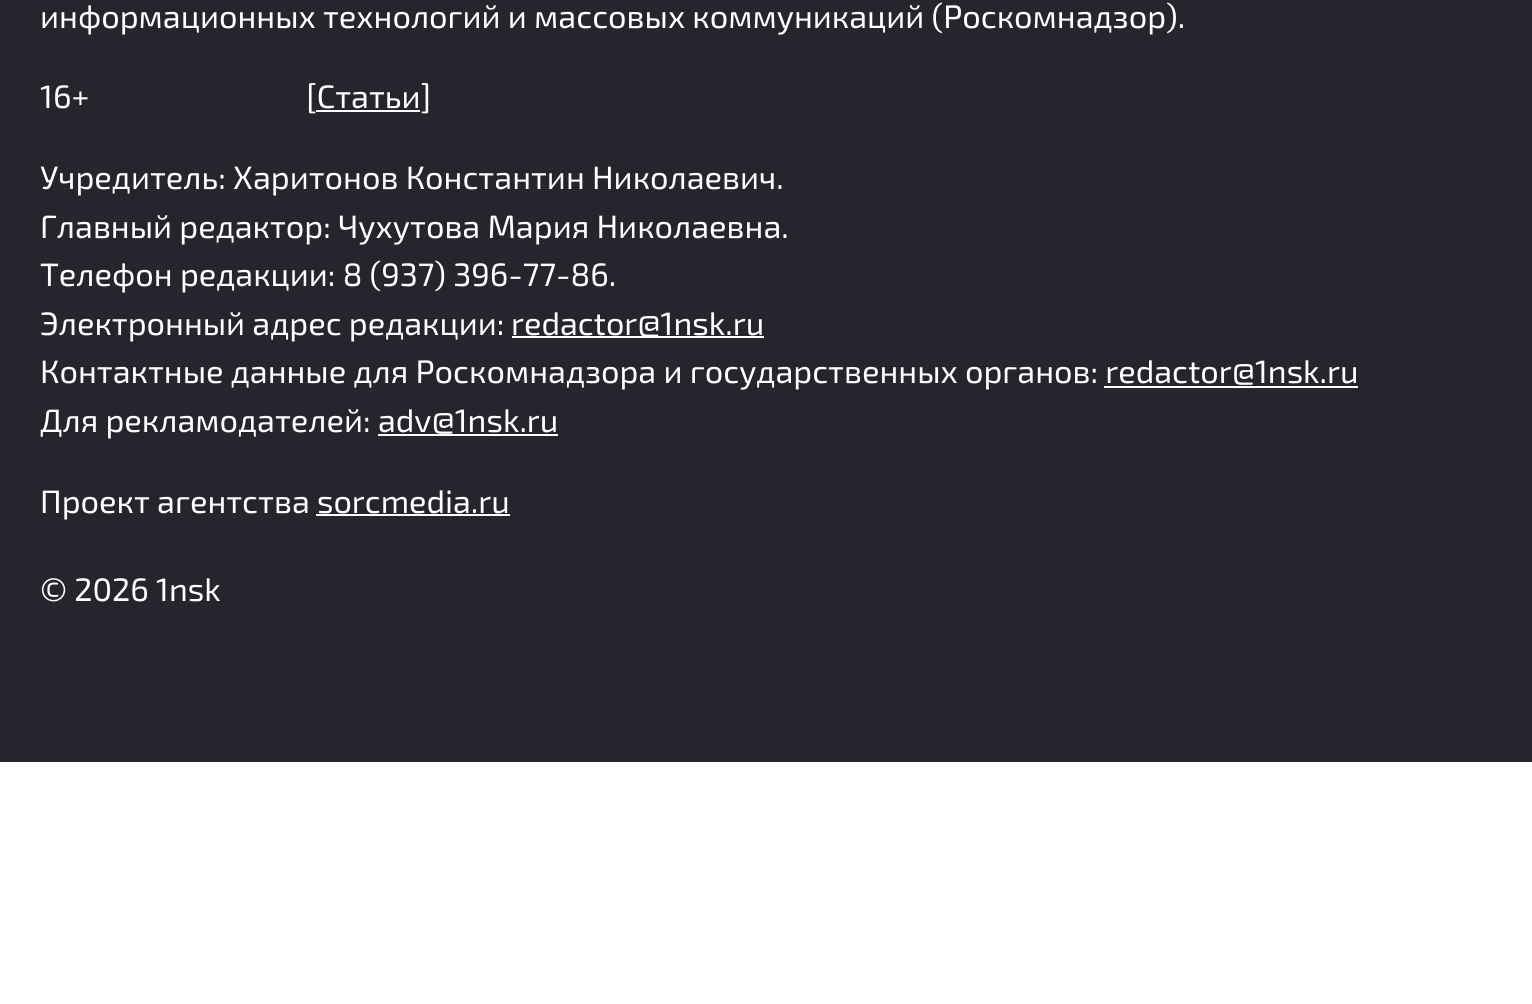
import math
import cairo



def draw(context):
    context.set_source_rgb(1, 1, 1)
    context.paint()
    context.set_source_rgb(38 / 255, 37 / 255, 45 / 255)
    context.rectangle(0, 0, 1532, 762)
    context.fill()
    context.set_source_rgb(1, 1, 1)
    context.rectangle(316, 110, 104, 2)
    context.fill()
    context.rectangle(512, 336, 252, 2)
    context.fill()
    context.rectangle(1104, 386, 254, 2)
    context.fill()
    context.rectangle(378, 434, 180, 2)
    context.fill()
    context.rectangle(316, 514, 194, 2)
    context.fill()
    context.select_font_face("Exo 2")
    context.set_font_size(32.4)
    context.move_to(40, 28)
    context.show_text("информационных технологий и массовых коммуникаций (Роскомнадзор).")
    context.move_to(40, 108)
    context.show_text("16+                              [Статьи]")
    context.move_to(40, 189)
    context.show_text("Учредитель: Харитонов Константин Николаевич.")
    context.move_to(40, 238)
    context.show_text("Главный редактор: Чухутова Мария Николаевна.")
    context.move_to(40, 286)
    context.show_text("Телефон редакции: 8 (937) 396-77-86.")
    context.move_to(40, 335)
    context.show_text("Электронный адрес редакции:")
    context.move_to(511, 335)
    context.show_text("redactor@1nsk.ru")
    context.move_to(40, 383)
    context.show_text("Контактные данные для Роскомнадзора и государственных органов: redactor@1nsk.ru")
    context.move_to(40, 432)
    context.show_text("Для рекламодателей: adv@1nsk.ru")
    context.move_to(40, 513)
    context.show_text("Проект агентства sorcmedia.ru")
    context.move_to(40, 601)
    context.show_text("© 2026 1nsk")


surface = cairo.ImageSurface(cairo.Format.RGB24, 1532, 1004)
context = cairo.Context(surface)
options = cairo.FontOptions()
options.set_hint_metrics(cairo.HintMetrics.OFF)
options.set_hint_style(cairo.HintStyle.NONE)
context.set_font_options(options)
context.set_miter_limit(4)
draw(context)
surface.write_to_png("out.png")
